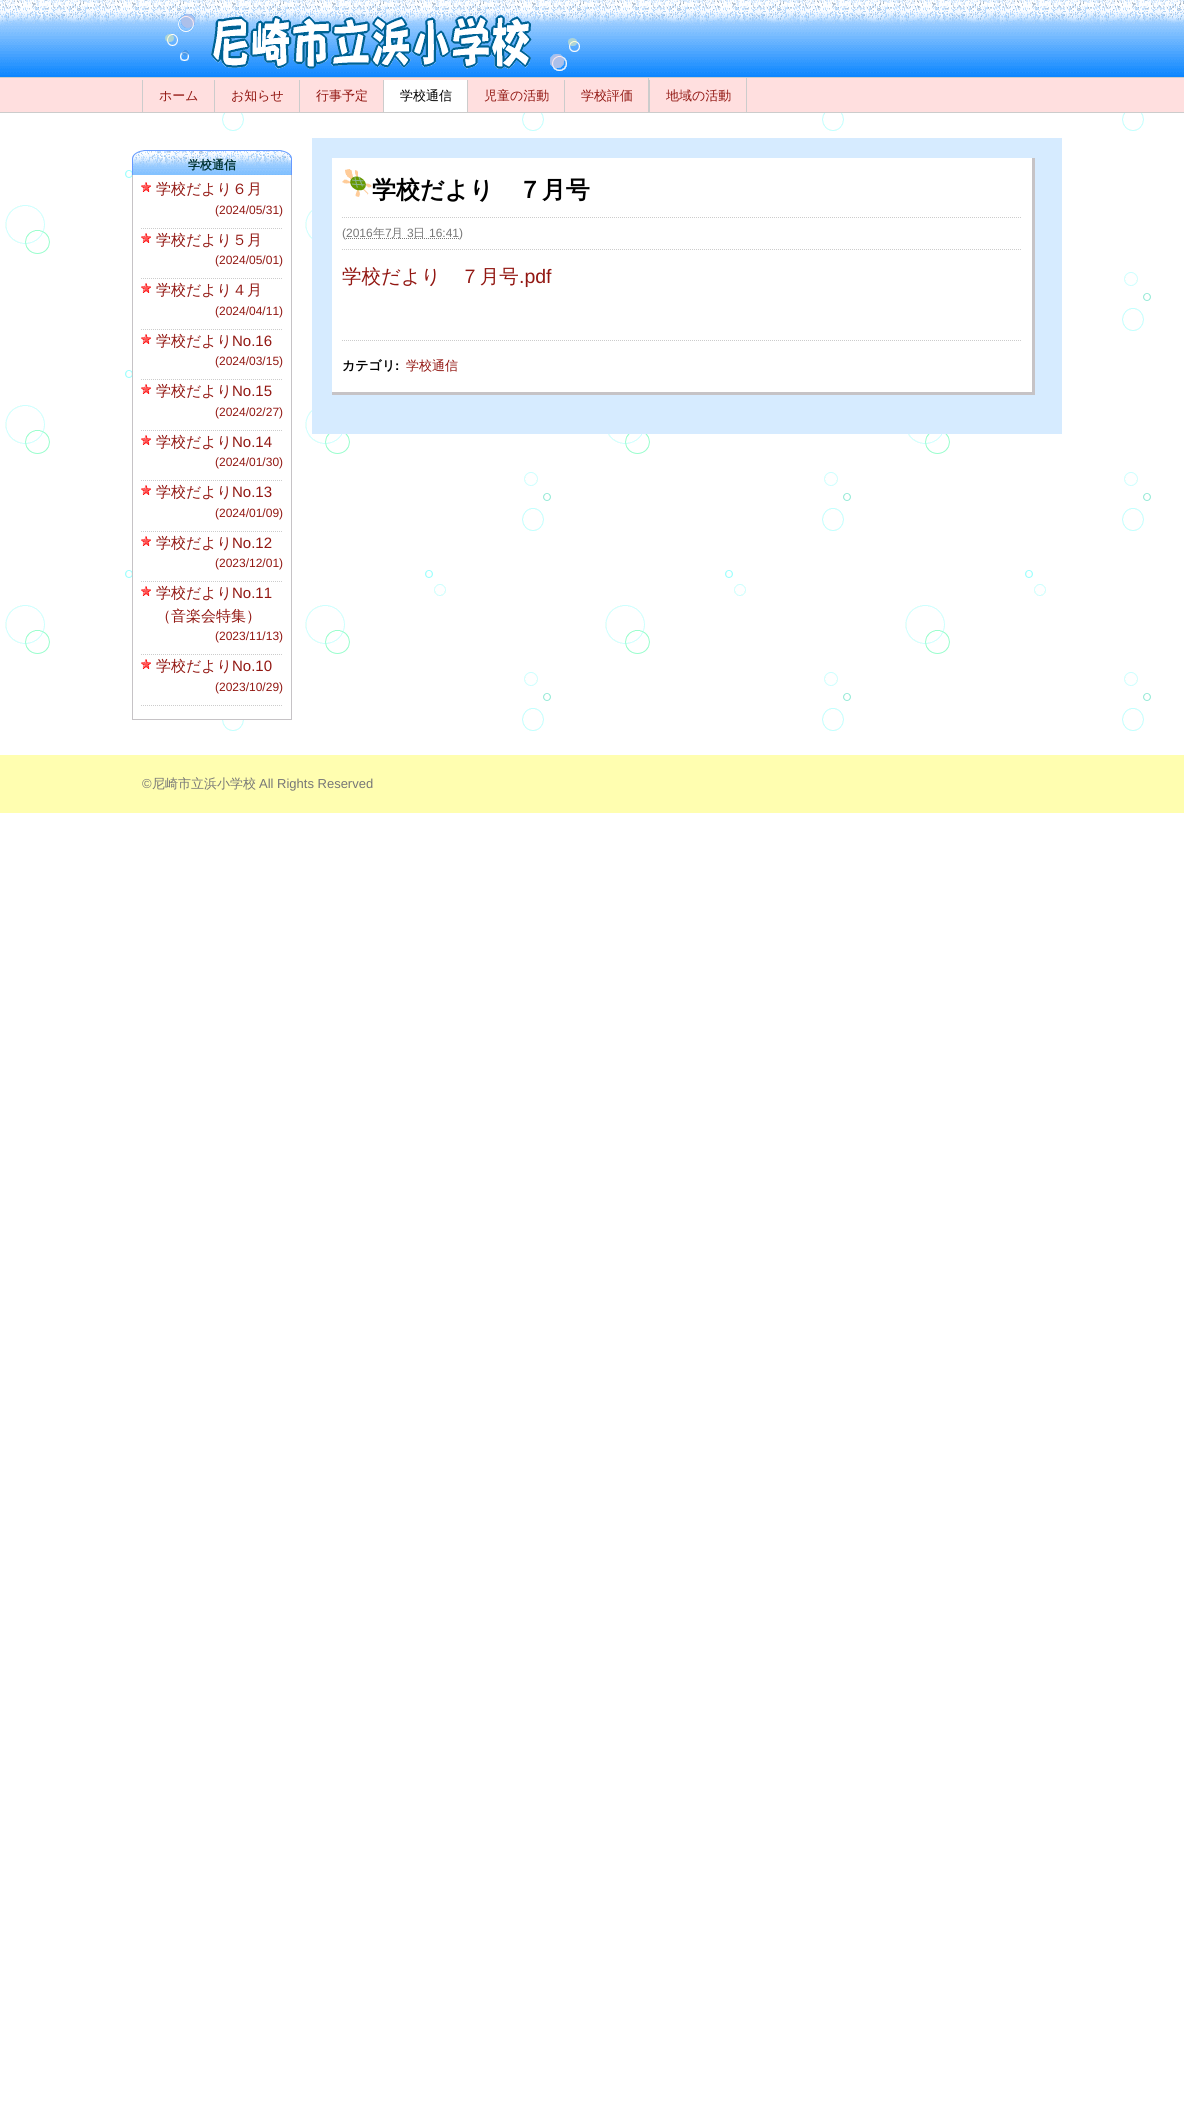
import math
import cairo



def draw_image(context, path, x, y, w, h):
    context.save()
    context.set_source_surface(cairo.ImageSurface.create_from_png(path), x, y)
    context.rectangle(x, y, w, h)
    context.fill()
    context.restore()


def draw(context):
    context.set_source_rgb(1, 1, 1)
    context.paint()
    draw_image(context, "images/1.png", 5, 113, 1146, 642)
    draw_image(context, "images/2.png", 0, 0, 1184, 77)
    draw_image(context, "images/3.png", 165, 14, 415, 57)
    context.set_source_rgb(1, 223 / 255, 223 / 255)
    context.rectangle(0, 78, 1184, 34)
    context.fill()
    context.set_source_rgb(204 / 255, 204 / 255, 204 / 255)
    context.rectangle(0, 77, 1184, 1)
    context.fill()
    context.rectangle(0, 112, 1184, 1)
    context.fill()
    context.rectangle(142, 80, 1, 32)
    context.fill()
    context.rectangle(214, 80, 1, 32)
    context.fill()
    context.rectangle(299, 80, 1, 32)
    context.fill()
    context.set_source_rgb(1, 1, 1)
    context.rectangle(384, 80, 83, 32)
    context.fill()
    context.set_source_rgb(204 / 255, 204 / 255, 204 / 255)
    context.rectangle(383, 80, 1, 32)
    context.fill()
    context.rectangle(467, 80, 1, 32)
    context.fill()
    context.rectangle(648, 78, 1, 34)
    context.fill()
    context.rectangle(564, 80, 1, 32)
    context.fill()
    context.rectangle(746, 78, 1, 34)
    context.fill()
    context.rectangle(649, 80, 1, 32)
    context.fill()
    draw_image(context, "images/4.png", 131, 150, 161, 25)
    context.set_source_rgb(1, 1, 1)
    context.rectangle(134, 184, 117, 535)
    context.fill()
    context.set_source_rgb(198 / 255, 195 / 255, 198 / 255)
    context.rectangle(291, 175, 1, 545)
    context.fill()
    context.rectangle(132, 719, 160, 1)
    context.fill()
    context.rectangle(132, 175, 1, 545)
    context.fill()
    draw_image(context, "images/5.png", 141, 182, 10, 10)
    context.new_path()
    context.move_to(141, 228.5)
    context.line_to(283, 228.5)
    context.set_source_rgb(204 / 255, 204 / 255, 204 / 255)
    context.set_line_width(1)
    context.set_dash([1, 1])
    context.stroke()
    draw_image(context, "images/5.png", 141, 233, 10, 10)
    context.new_path()
    context.move_to(141, 278.5)
    context.line_to(283, 278.5)
    context.stroke()
    draw_image(context, "images/5.png", 141, 283, 10, 10)
    context.new_path()
    context.move_to(141, 329.5)
    context.line_to(283, 329.5)
    context.stroke()
    draw_image(context, "images/5.png", 141, 334, 10, 10)
    context.new_path()
    context.move_to(141, 379.5)
    context.line_to(283, 379.5)
    context.stroke()
    draw_image(context, "images/5.png", 141, 384, 10, 10)
    context.new_path()
    context.move_to(141, 430.5)
    context.line_to(283, 430.5)
    context.stroke()
    draw_image(context, "images/5.png", 141, 435, 10, 10)
    context.new_path()
    context.move_to(141, 480.5)
    context.line_to(283, 480.5)
    context.stroke()
    draw_image(context, "images/5.png", 141, 485, 10, 10)
    context.new_path()
    context.move_to(141, 531.5)
    context.line_to(283, 531.5)
    context.stroke()
    draw_image(context, "images/5.png", 141, 536, 10, 10)
    context.new_path()
    context.move_to(141, 581.5)
    context.line_to(283, 581.5)
    context.stroke()
    draw_image(context, "images/5.png", 141, 586, 10, 10)
    context.new_path()
    context.move_to(141, 654.5)
    context.line_to(283, 654.5)
    context.stroke()
    draw_image(context, "images/5.png", 141, 659, 10, 10)
    context.new_path()
    context.move_to(141, 705.5)
    context.line_to(283, 705.5)
    context.stroke()
    context.set_source_rgb(214 / 255, 235 / 255, 1)
    context.rectangle(312, 138, 750, 296)
    context.fill()
    context.set_source_rgb(1, 1, 1)
    context.rectangle(332, 158, 700, 234)
    context.fill()
    context.set_source_rgb(198 / 255, 195 / 255, 198 / 255)
    context.rectangle(1032, 158, 3, 237)
    context.fill()
    context.rectangle(332, 392, 703, 3)
    context.fill()
    draw_image(context, "images/6.png", 342, 169, 30, 28)
    context.new_path()
    context.move_to(342, 217.5)
    context.line_to(1022, 217.5)
    context.set_source_rgb(204 / 255, 204 / 255, 204 / 255)
    context.stroke()
    context.new_path()
    context.move_to(342, 249.5)
    context.line_to(1022, 249.5)
    context.stroke()
    context.new_path()
    context.move_to(346, 238.5)
    context.line_to(459, 238.5)
    context.set_source_rgb(119 / 255, 119 / 255, 119 / 255)
    context.stroke()
    context.new_path()
    context.move_to(342, 340.5)
    context.line_to(1022, 340.5)
    context.set_source_rgb(204 / 255, 204 / 255, 204 / 255)
    context.stroke()
    context.set_source_rgb(1, 254 / 255, 176 / 255)
    context.rectangle(0, 755, 1184, 58)
    context.fill()
    context.select_font_face("WenQuanYi Zen Hei Medium")
    context.set_font_size(13)
    context.set_source_rgb(146 / 255, 23 / 255, 18 / 255)
    context.move_to(159, 100)
    context.show_text("ホーム")
    context.move_to(231, 100)
    context.show_text("お知らせ")
    context.move_to(316, 100)
    context.show_text("行事予定")
    context.set_source_rgb(0, 0, 0)
    context.move_to(400, 100)
    context.show_text("学校通信")
    context.set_source_rgb(146 / 255, 23 / 255, 18 / 255)
    context.move_to(484, 100)
    context.show_text("児童の活動")
    context.move_to(581, 100)
    context.show_text("学校評価")
    context.move_to(666, 100)
    context.show_text("地域の活動")
    context.select_font_face("WenQuanYi Zen Hei", cairo.FontSlant.NORMAL, cairo.FontWeight.BOLD)
    context.set_font_size(12)
    context.set_source_rgb(0, 51 / 255, 51 / 255)
    context.move_to(188, 169)
    context.show_text("学校通信")
    context.select_font_face("WenQuanYi Zen Hei Medium")
    context.set_font_size(15)
    context.set_source_rgb(146 / 255, 23 / 255, 18 / 255)
    context.move_to(156, 194)
    context.show_text("学校だより６月")
    context.select_font_face("Liberation Sans")
    context.set_font_size(12)
    context.move_to(215, 214)
    context.show_text("(2024/05/31)")
    context.select_font_face("WenQuanYi Zen Hei Medium")
    context.set_font_size(15)
    context.move_to(156, 245)
    context.show_text("学校だより５月")
    context.select_font_face("Liberation Sans")
    context.set_font_size(12)
    context.move_to(215, 264)
    context.show_text("(2024/05/01)")
    context.select_font_face("WenQuanYi Zen Hei Medium")
    context.set_font_size(15)
    context.move_to(156, 295)
    context.show_text("学校だより４月")
    context.select_font_face("Liberation Sans")
    context.set_font_size(12)
    context.move_to(215, 315)
    context.show_text("(2024/04/11)")
    context.select_font_face("WenQuanYi Zen Hei Medium")
    context.set_font_size(15)
    context.move_to(156, 346)
    context.show_text("学校だより")
    context.select_font_face("Liberation Sans")
    context.move_to(232, 346)
    context.show_text("No.16")
    context.set_font_size(12)
    context.move_to(215, 365)
    context.show_text("(2024/03/15)")
    context.select_font_face("WenQuanYi Zen Hei Medium")
    context.set_font_size(15)
    context.move_to(156, 396)
    context.show_text("学校だより")
    context.select_font_face("Liberation Sans")
    context.move_to(232, 396)
    context.show_text("No.15")
    context.set_font_size(12)
    context.move_to(215, 416)
    context.show_text("(2024/02/27)")
    context.select_font_face("WenQuanYi Zen Hei Medium")
    context.set_font_size(15)
    context.move_to(156, 447)
    context.show_text("学校だより")
    context.select_font_face("Liberation Sans")
    context.move_to(232, 447)
    context.show_text("No.14")
    context.set_font_size(12)
    context.move_to(215, 466)
    context.show_text("(2024/01/30)")
    context.select_font_face("WenQuanYi Zen Hei Medium")
    context.set_font_size(15)
    context.move_to(156, 497)
    context.show_text("学校だより")
    context.select_font_face("Liberation Sans")
    context.move_to(232, 497)
    context.show_text("No.13")
    context.set_font_size(12)
    context.move_to(215, 517)
    context.show_text("(2024/01/09)")
    context.select_font_face("WenQuanYi Zen Hei Medium")
    context.set_font_size(15)
    context.move_to(156, 548)
    context.show_text("学校だより")
    context.select_font_face("Liberation Sans")
    context.move_to(232, 548)
    context.show_text("No.12")
    context.set_font_size(12)
    context.move_to(215, 567)
    context.show_text("(2023/12/01)")
    context.select_font_face("WenQuanYi Zen Hei Medium")
    context.set_font_size(15)
    context.move_to(156, 598)
    context.show_text("学校だより")
    context.select_font_face("Liberation Sans")
    context.move_to(232, 598)
    context.show_text("No.11")
    context.select_font_face("WenQuanYi Zen Hei Medium")
    context.move_to(156, 621)
    context.show_text("（音楽会特集）")
    context.select_font_face("Liberation Sans")
    context.set_font_size(12)
    context.move_to(215, 640)
    context.show_text("(2023/11/13)")
    context.select_font_face("WenQuanYi Zen Hei Medium")
    context.set_font_size(15)
    context.move_to(156, 671)
    context.show_text("学校だより")
    context.select_font_face("Liberation Sans")
    context.move_to(232, 671)
    context.show_text("No.10")
    context.set_font_size(12)
    context.move_to(215, 691)
    context.show_text("(2023/10/29)")
    context.select_font_face("WenQuanYi Zen Hei", cairo.FontSlant.NORMAL, cairo.FontWeight.BOLD)
    context.set_font_size(24)
    context.set_source_rgb(0, 0, 0)
    context.move_to(372, 198)
    context.show_text("学校だより　７月号")
    context.select_font_face("Liberation Sans")
    context.set_font_size(12)
    context.set_source_rgb(119 / 255, 119 / 255, 119 / 255)
    context.move_to(342, 237)
    context.show_text("(2016")
    context.select_font_face("WenQuanYi Zen Hei Medium")
    context.move_to(373, 237)
    context.show_text("年")
    context.select_font_face("Liberation Sans")
    context.move_to(385, 237)
    context.show_text("7")
    context.select_font_face("WenQuanYi Zen Hei Medium")
    context.move_to(391, 237)
    context.show_text("月")
    context.select_font_face("Liberation Sans")
    context.move_to(407, 237)
    context.show_text("3")
    context.select_font_face("WenQuanYi Zen Hei Medium")
    context.move_to(413, 237)
    context.show_text("日")
    context.select_font_face("Liberation Sans")
    context.move_to(429, 237)
    context.show_text("16:41)")
    context.select_font_face("WenQuanYi Zen Hei Medium")
    context.set_font_size(19.5)
    context.set_source_rgb(146 / 255, 23 / 255, 18 / 255)
    context.move_to(342, 283)
    context.show_text("学校だより　７月号")
    context.select_font_face("Liberation Sans")
    context.move_to(519, 283)
    context.show_text(".pdf")
    context.select_font_face("WenQuanYi Zen Hei", cairo.FontSlant.NORMAL, cairo.FontWeight.BOLD)
    context.set_font_size(13)
    context.set_source_rgb(0, 0, 0)
    context.move_to(342, 370)
    context.show_text("カテゴリ")
    context.select_font_face("Liberation Sans", cairo.FontSlant.NORMAL, cairo.FontWeight.BOLD)
    context.move_to(395, 370)
    context.show_text(":")
    context.select_font_face("WenQuanYi Zen Hei Medium")
    context.set_source_rgb(146 / 255, 23 / 255, 18 / 255)
    context.move_to(406, 370)
    context.show_text("学校通信")
    context.select_font_face("Liberation Sans")
    context.set_source_rgb(119 / 255, 119 / 255, 119 / 255)
    context.move_to(142, 788)
    context.show_text("©")
    context.select_font_face("WenQuanYi Zen Hei Medium")
    context.move_to(152, 788)
    context.show_text("尼崎市立浜小学校")
    context.select_font_face("Liberation Sans")
    context.move_to(259, 788)
    context.show_text("All Rights Reserved")


surface = cairo.ImageSurface(cairo.Format.RGB24, 1184, 2107)
context = cairo.Context(surface)
options = cairo.FontOptions()
options.set_hint_metrics(cairo.HintMetrics.OFF)
options.set_hint_style(cairo.HintStyle.NONE)
context.set_font_options(options)
context.set_miter_limit(4)
draw(context)
surface.write_to_png("out.png")
